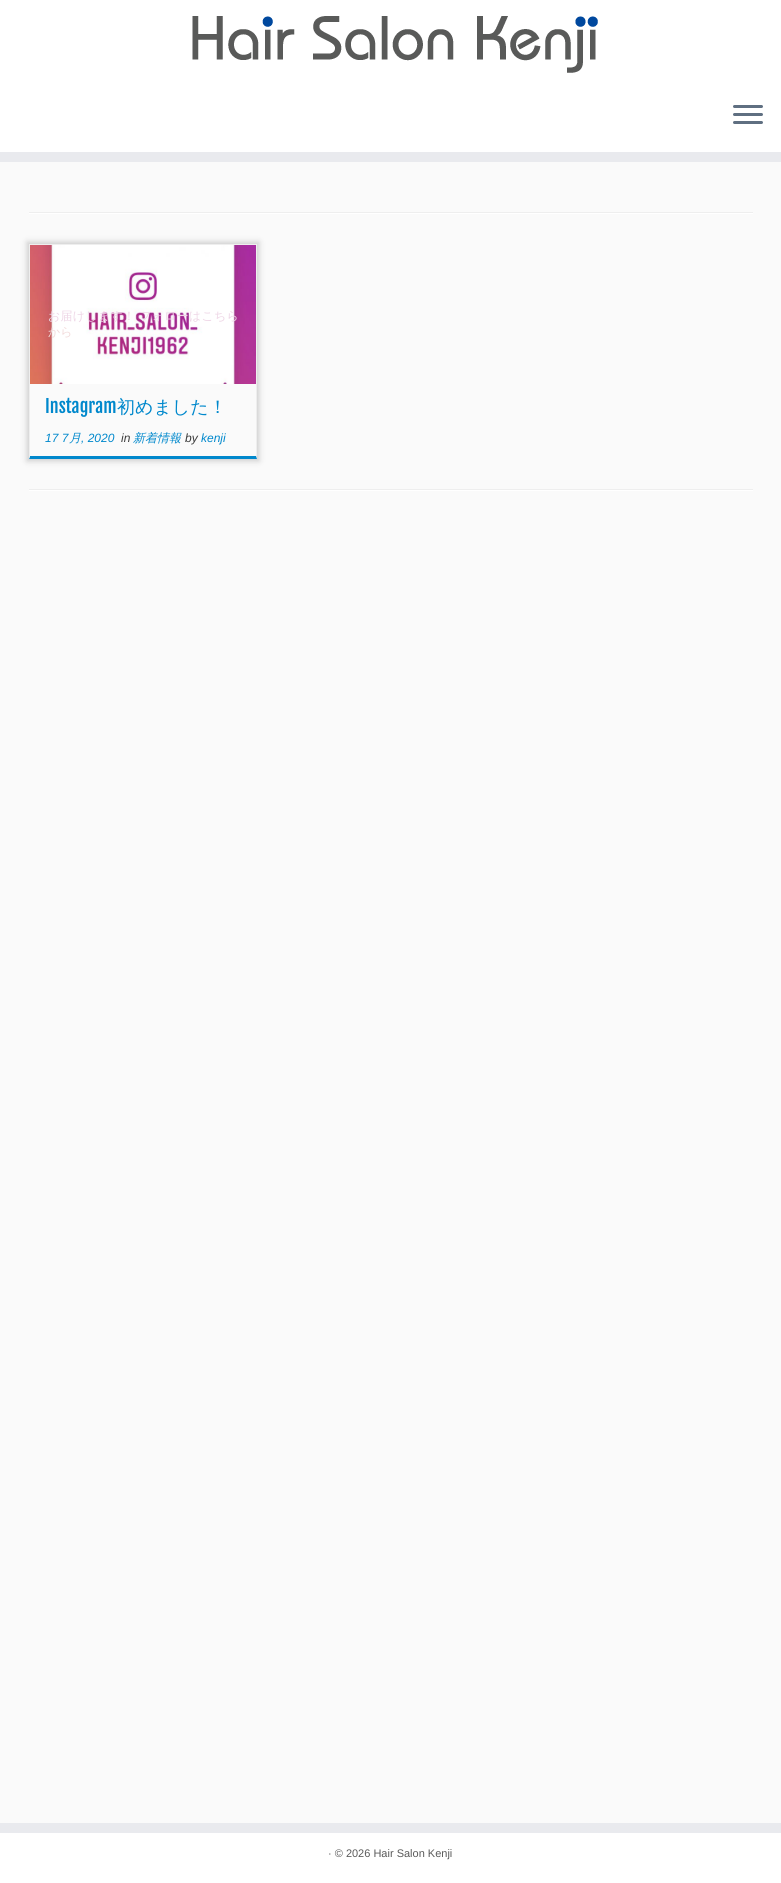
import math
import cairo



def draw_spaced(context, x, y, s, letter, word):
    context.move_to(x, y)
    for ch in s:
        context.show_text(ch)
        context.rel_move_to(letter + word * (ch == ' '), 0)


def rounded_rect(context, x, y, w, h, r):
    context.new_sub_path()
    for i, (u, v) in enumerate([(x + w - r, y + h - r), (x + r, y + h - r), (x + r, y + r), (x + w - r, y + r)]):
        context.arc(u, v, r, i * math.pi / 2, (i + 1) * math.pi / 2)
    context.close_path()


def draw_shadow(context, x, y, w, h, r, blur, alpha):
    context.push_group_with_content(cairo.Content.ALPHA)
    context.set_operator(cairo.Operator.SOURCE)
    for i in range(15, -16, -2):
        e = blur * i / 6
        if min(w, h) + 2 * e > 0:
            context.set_source_rgba(0, 0, 0, alpha * math.erfc((i - 1) / 8.5) / 2)
            rounded_rect(context, x - e, y - e, w + 2 * e, h + 2 * e, max(0, min(r + e + blur * .6, min(w, h) / 2 + e)))
            context.fill()
    context.mask(context.pop_group())


def draw_image(context, path, x, y, w, h):
    context.save()
    context.set_source_surface(cairo.ImageSurface.create_from_png(path), x, y)
    context.rectangle(x, y, w, h)
    context.fill()
    context.restore()


def draw(context):
    context.set_source_rgb(250 / 255, 250 / 255, 250 / 255)
    context.paint()
    context.set_source_rgb(1, 1, 1)
    context.rectangle(0, 0, 781, 152)
    context.fill()
    context.set_source_rgb(233 / 255, 234 / 255, 238 / 255)
    context.rectangle(0, 152, 781, 10)
    context.fill()
    draw_image(context, "images/1.png", 192, 16, 406, 57)
    context.set_source_rgb(95 / 255, 111 / 255, 129 / 255)
    rounded_rect(context, 733, 105, 30, 3, 1.5)
    context.fill()
    rounded_rect(context, 733, 113, 30, 3, 1.5)
    context.fill()
    rounded_rect(context, 733, 121, 30, 3, 1.5)
    context.fill()
    context.set_source_rgb(238 / 255, 238 / 255, 238 / 255)
    context.rectangle(29, 212, 724, 1)
    context.fill()
    context.set_source_rgb(1, 1, 1)
    context.rectangle(29, 213, 724, 1)
    context.fill()
    context.save()
    context.set_fill_rule(cairo.FillRule.EVEN_ODD)
    context.new_path()
    context.move_to(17, 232)
    context.line_to(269, 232)
    context.line_to(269, 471)
    context.line_to(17, 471)
    context.close_path()
    context.move_to(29, 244)
    context.line_to(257, 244)
    context.line_to(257, 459)
    context.line_to(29, 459)
    context.close_path()
    context.clip()
    context.set_source_rgb(204 / 255, 204 / 255, 204 / 255)
    draw_shadow(context, 27, 242, 232, 219, 0, 3, 1)
    context.restore()
    context.set_source_rgb(238 / 255, 238 / 255, 238 / 255)
    context.rectangle(29, 244, 228, 1)
    context.fill()
    context.new_path()
    context.move_to(257, 244)
    context.line_to(257, 459)
    context.line_to(256, 456)
    context.line_to(256, 245)
    context.close_path()
    context.fill()
    context.set_source_rgb(0, 136 / 255, 204 / 255)
    context.new_path()
    context.move_to(257, 459)
    context.line_to(29, 459)
    context.line_to(30, 456)
    context.line_to(256, 456)
    context.close_path()
    context.fill()
    context.set_source_rgb(238 / 255, 238 / 255, 238 / 255)
    context.new_path()
    context.move_to(29, 459)
    context.line_to(29, 244)
    context.line_to(30, 245)
    context.line_to(30, 456)
    context.close_path()
    context.fill()
    draw_image(context, "images/2.png", 30, 245, 226, 139)
    context.rectangle(29, 489, 724, 1)
    context.fill()
    context.set_source_rgb(1, 1, 1)
    context.rectangle(29, 490, 724, 1)
    context.fill()
    context.set_source_rgb(233 / 255, 234 / 255, 238 / 255)
    context.rectangle(0, 1823, 781, 10)
    context.fill()
    context.set_source_rgb(1, 1, 1)
    context.rectangle(0, 1833, 781, 50)
    context.fill()
    context.select_font_face("WenQuanYi Zen Hei Medium")
    context.set_font_size(12)
    context.set_source_rgb(238 / 255, 214 / 255, 230 / 255)
    draw_spaced(context, 48, 320, "お届けします！ フォローはこちら", 0.25, 0)
    context.set_source_rgb(242 / 255, 219 / 255, 219 / 255)
    context.move_to(48, 336)
    context.show_text("から")
    context.select_font_face("Fjalla One")
    context.set_font_size(18)
    context.set_source_rgb(0, 136 / 255, 204 / 255)
    context.move_to(45, 413)
    context.show_text("Instagram")
    context.select_font_face("WenQuanYi Zen Hei Medium")
    context.move_to(117, 413)
    context.show_text("初めました！")
    context.select_font_face("Liberation Sans", cairo.FontSlant.ITALIC)
    context.set_font_size(12)
    context.move_to(45, 442)
    context.show_text("17 7")
    context.select_font_face("WenQuanYi Zen Hei Medium", cairo.FontSlant.ITALIC)
    context.move_to(69, 442)
    context.show_text("月")
    context.select_font_face("Liberation Sans", cairo.FontSlant.ITALIC)
    context.move_to(81, 442)
    context.show_text(", 2020")
    context.set_source_rgb(60 / 255, 60 / 255, 60 / 255)
    context.move_to(121, 442)
    context.show_text("in")
    context.select_font_face("WenQuanYi Zen Hei Medium", cairo.FontSlant.ITALIC)
    context.set_source_rgb(0, 136 / 255, 204 / 255)
    context.move_to(133, 442)
    context.show_text("新着情報")
    context.select_font_face("Liberation Sans", cairo.FontSlant.ITALIC)
    context.set_source_rgb(60 / 255, 60 / 255, 60 / 255)
    context.move_to(185, 442)
    context.show_text("by")
    context.set_source_rgb(0, 136 / 255, 204 / 255)
    context.move_to(201, 442)
    context.show_text("kenji")
    context.select_font_face("Liberation Sans")
    context.set_font_size(11)
    context.set_source_rgb(90 / 255, 90 / 255, 90 / 255)
    context.move_to(328, 1857)
    context.show_text("· © 2026 Hair Salon Kenji")


surface = cairo.ImageSurface(cairo.Format.RGB24, 781, 1883)
context = cairo.Context(surface)
options = cairo.FontOptions()
options.set_hint_metrics(cairo.HintMetrics.OFF)
options.set_hint_style(cairo.HintStyle.NONE)
context.set_font_options(options)
context.set_miter_limit(4)
draw(context)
surface.write_to_png("out.png")
